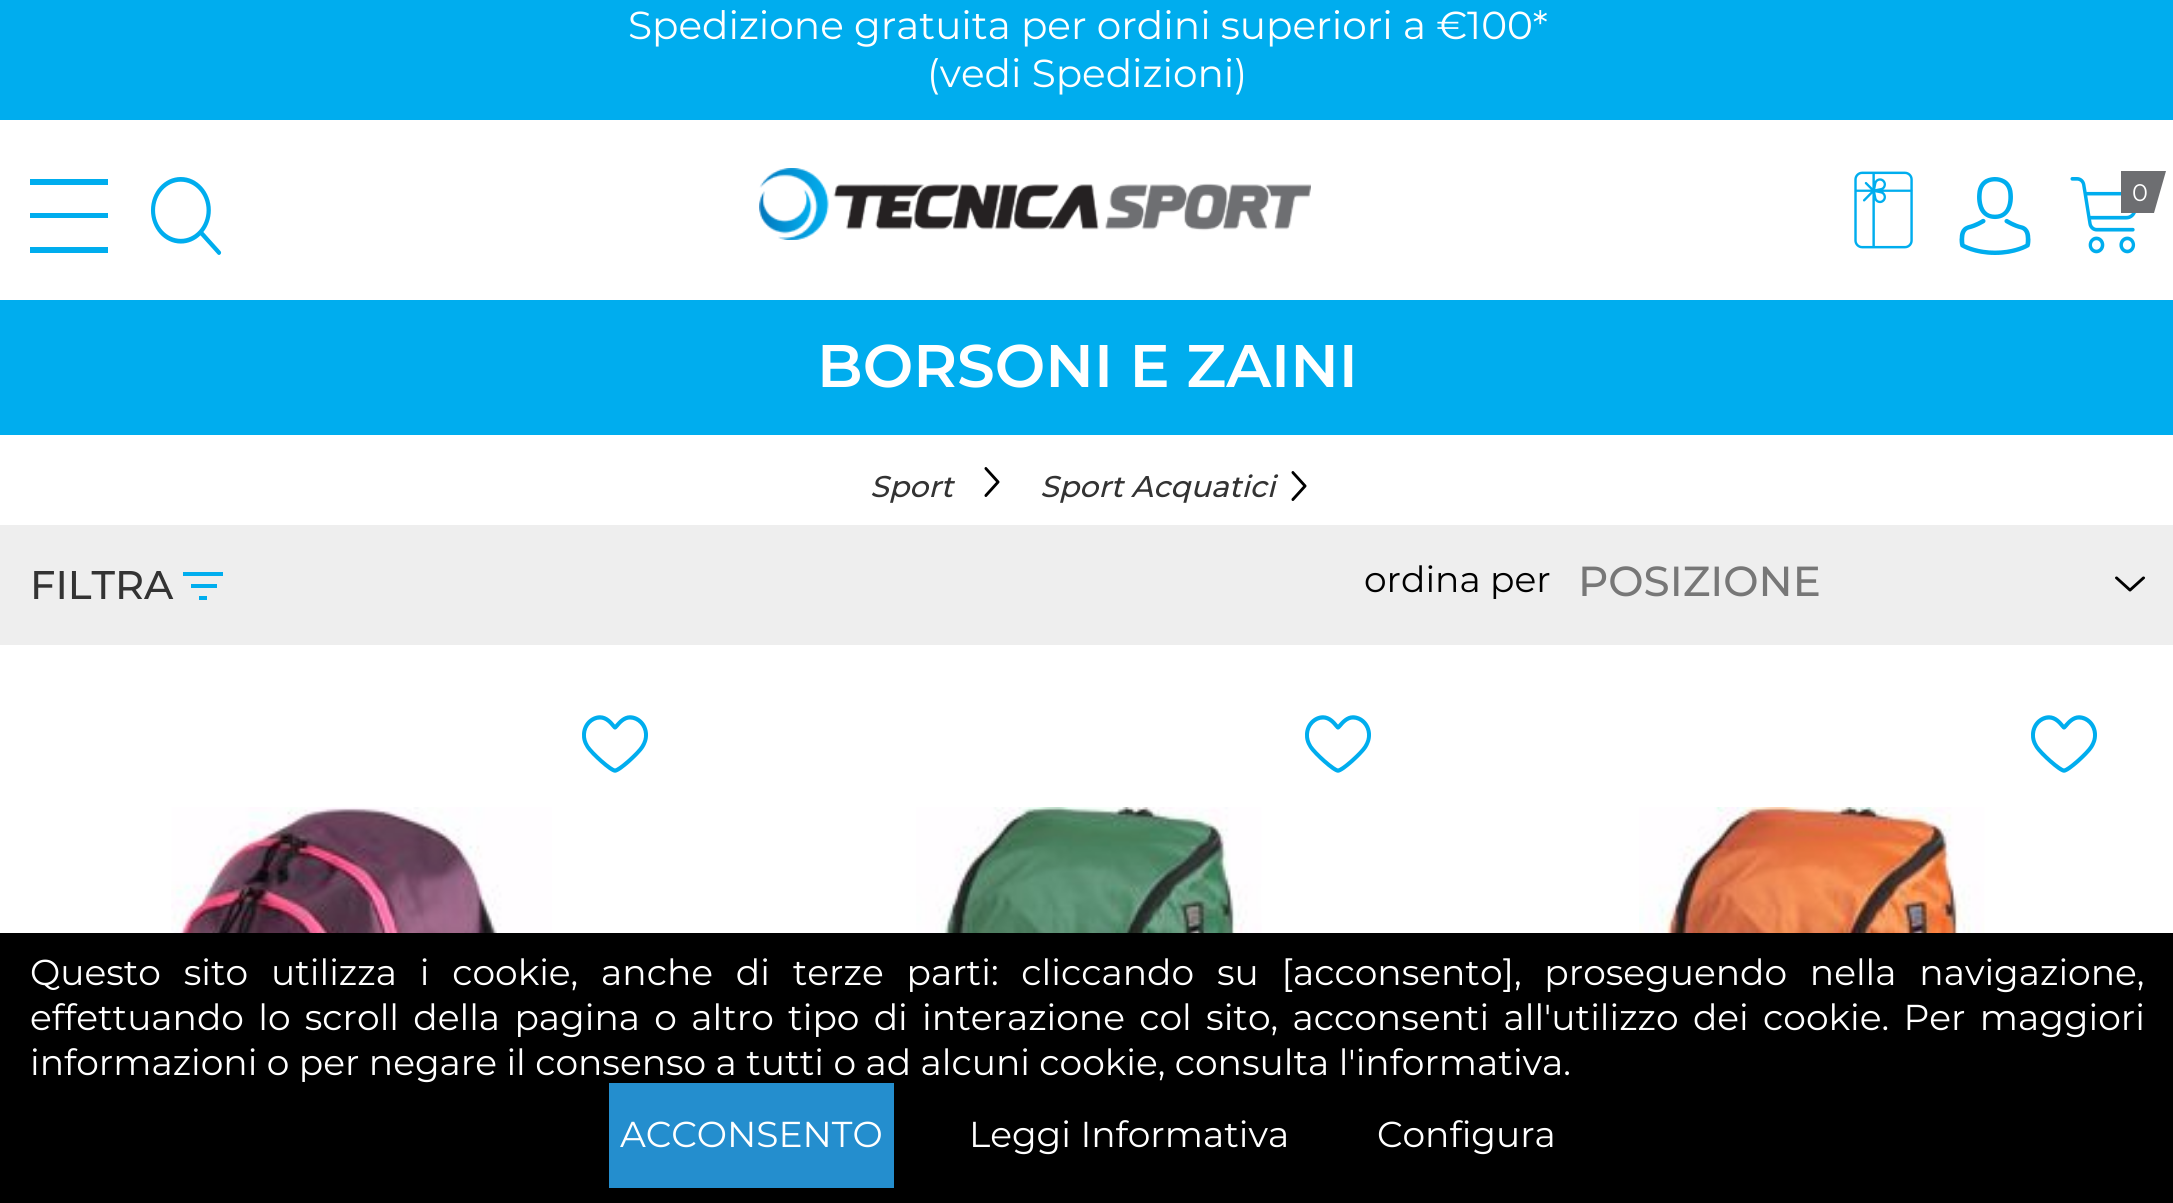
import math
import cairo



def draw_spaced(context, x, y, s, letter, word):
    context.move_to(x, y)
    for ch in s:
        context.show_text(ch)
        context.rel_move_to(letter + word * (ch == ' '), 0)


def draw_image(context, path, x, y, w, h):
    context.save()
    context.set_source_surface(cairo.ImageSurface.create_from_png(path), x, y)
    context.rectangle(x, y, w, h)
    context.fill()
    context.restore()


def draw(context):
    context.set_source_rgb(1, 1, 1)
    context.paint()
    context.set_source_rgb(0, 173 / 255, 238 / 255)
    context.rectangle(0, 0, 2173, 120)
    context.fill()
    context.new_path()
    context.move_to(30, 179)
    context.line_to(30, 185)
    context.line_to(108, 185)
    context.line_to(108, 179)
    context.close_path()
    context.move_to(30, 247)
    context.line_to(30, 253)
    context.line_to(108, 253)
    context.line_to(108, 247)
    context.close_path()
    context.move_to(30, 213)
    context.line_to(30, 218)
    context.line_to(108, 218)
    context.line_to(108, 213)
    context.close_path()
    context.fill()
    draw_image(context, "images/1.png", 150, 177, 72, 78)
    draw_image(context, "images/2.png", 759, 168, 552, 72)
    draw_image(context, "images/3.png", 1854, 171, 59, 78)
    draw_image(context, "images/4.png", 1959, 177, 72, 78)
    draw_image(context, "images/5.png", 2070, 177, 66, 77)
    context.set_source_rgb(109 / 255, 110 / 255, 113 / 255)
    context.rectangle(2121, 171, 33, 42)
    context.fill()
    context.new_path()
    context.move_to(2148, 171)
    context.line_to(2166, 171)
    context.line_to(2154, 213)
    context.close_path()
    context.fill()
    context.set_source_rgb(0, 173 / 255, 238 / 255)
    context.rectangle(0, 300, 2173, 135)
    context.fill()
    context.set_source_rgb(238 / 255, 238 / 255, 238 / 255)
    context.rectangle(0, 525, 2173, 120)
    context.fill()
    context.set_source_rgb(0, 173 / 255, 238 / 255)
    context.new_path()
    context.move_to(199, 600)
    context.line_to(199, 596)
    context.line_to(207, 596)
    context.line_to(207, 600)
    context.close_path()
    context.move_to(183, 572)
    context.line_to(223, 572)
    context.line_to(223, 576)
    context.line_to(183, 576)
    context.close_path()
    context.move_to(192.5, 588)
    context.line_to(191, 588)
    context.line_to(191, 584)
    context.line_to(217, 584)
    context.line_to(217, 588)
    context.close_path()
    context.fill()
    draw_image(context, "images/6.png", 582, 715, 66, 58)
    draw_image(context, "images/7.png", 171, 807, 381, 126)
    draw_image(context, "images/6.png", 1305, 715, 66, 58)
    draw_image(context, "images/8.png", 916, 807, 346, 126)
    draw_image(context, "images/6.png", 2031, 715, 66, 58)
    draw_image(context, "images/9.png", 1639, 807, 346, 126)
    context.set_source_rgb(0, 0, 0)
    context.rectangle(0, 933, 2173, 270)
    context.fill()
    context.set_source_rgb(36 / 255, 142 / 255, 206 / 255)
    context.rectangle(609, 1083, 285, 105)
    context.fill()
    context.select_font_face("Montserrat")
    context.set_font_size(39)
    context.set_source_rgb(1, 1, 1)
    context.move_to(628, 39)
    context.show_text("Spedizione gratuita per ordini superiori a €100*")
    context.move_to(927, 87)
    context.show_text("(vedi Spedizioni)")
    context.set_font_size(24)
    context.move_to(2132, 201)
    context.show_text("0")
    context.select_font_face("Montserrat SemiBold")
    context.set_font_size(60)
    context.move_to(817, 387)
    context.show_text("BORSONI E ZAINI")
    context.select_font_face("Montserrat Medium", cairo.FontSlant.ITALIC)
    context.set_font_size(30)
    context.set_source_rgb(51 / 255, 51 / 255, 51 / 255)
    context.move_to(870, 497)
    context.show_text("Sport")
    context.select_font_face("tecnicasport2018")
    context.set_source_rgb(0, 0, 0)
    context.move_to(977, 497)
    context.show_text(">")
    context.select_font_face("Montserrat Medium", cairo.FontSlant.ITALIC)
    context.set_source_rgb(51 / 255, 51 / 255, 51 / 255)
    context.move_to(1040, 497)
    context.show_text("Sport Acquatici")
    context.select_font_face("tecnicasport2018")
    context.set_source_rgb(0, 0, 0)
    context.move_to(1284, 501)
    context.show_text(">")
    context.select_font_face("Montserrat Medium")
    context.set_font_size(40)
    context.set_source_rgb(51 / 255, 51 / 255, 51 / 255)
    context.move_to(30, 599)
    context.show_text("FILTRA")
    context.select_font_face("Montserrat")
    context.set_font_size(36)
    context.set_source_rgb(0, 0, 0)
    context.move_to(1364, 592)
    context.show_text("ordina per")
    context.select_font_face("Montserrat Medium")
    context.set_font_size(42)
    context.set_source_rgb(119 / 255, 119 / 255, 119 / 255)
    context.move_to(1578, 596)
    context.show_text("POSIZIONE")
    context.select_font_face("tecnicasport2018")
    context.set_font_size(30)
    context.set_source_rgb(0, 0, 0)
    context.move_to(2115, 599)
    context.show_text("\\")
    context.select_font_face("Montserrat")
    context.set_font_size(36)
    context.set_source_rgb(1, 1, 1)
    draw_spaced(context, 30, 985, "Questo sito utilizza i cookie, anche di terze parti: cliccando su [acconsento], proseguendo nella navigazione,", 0, 13.4)
    draw_spaced(context, 30, 1030, "effettuando lo scroll della pagina o altro tipo di interazione col sito, acconsenti all'utilizzo dei cookie. Per maggiori", 0, 4.9)
    context.move_to(30, 1075)
    context.show_text("informazioni o per negare il consenso a tutti o ad alcuni cookie, consulta l'informativa.")
    context.move_to(620, 1147)
    context.show_text("ACCONSENTO")
    context.move_to(969, 1147)
    context.show_text("Leggi Informativa")
    context.move_to(1377, 1147)
    context.show_text("Configura")


surface = cairo.ImageSurface(cairo.Format.RGB24, 2173, 1203)
context = cairo.Context(surface)
options = cairo.FontOptions()
options.set_hint_metrics(cairo.HintMetrics.OFF)
options.set_hint_style(cairo.HintStyle.NONE)
context.set_font_options(options)
context.set_miter_limit(4)
draw(context)
surface.write_to_png("out.png")
